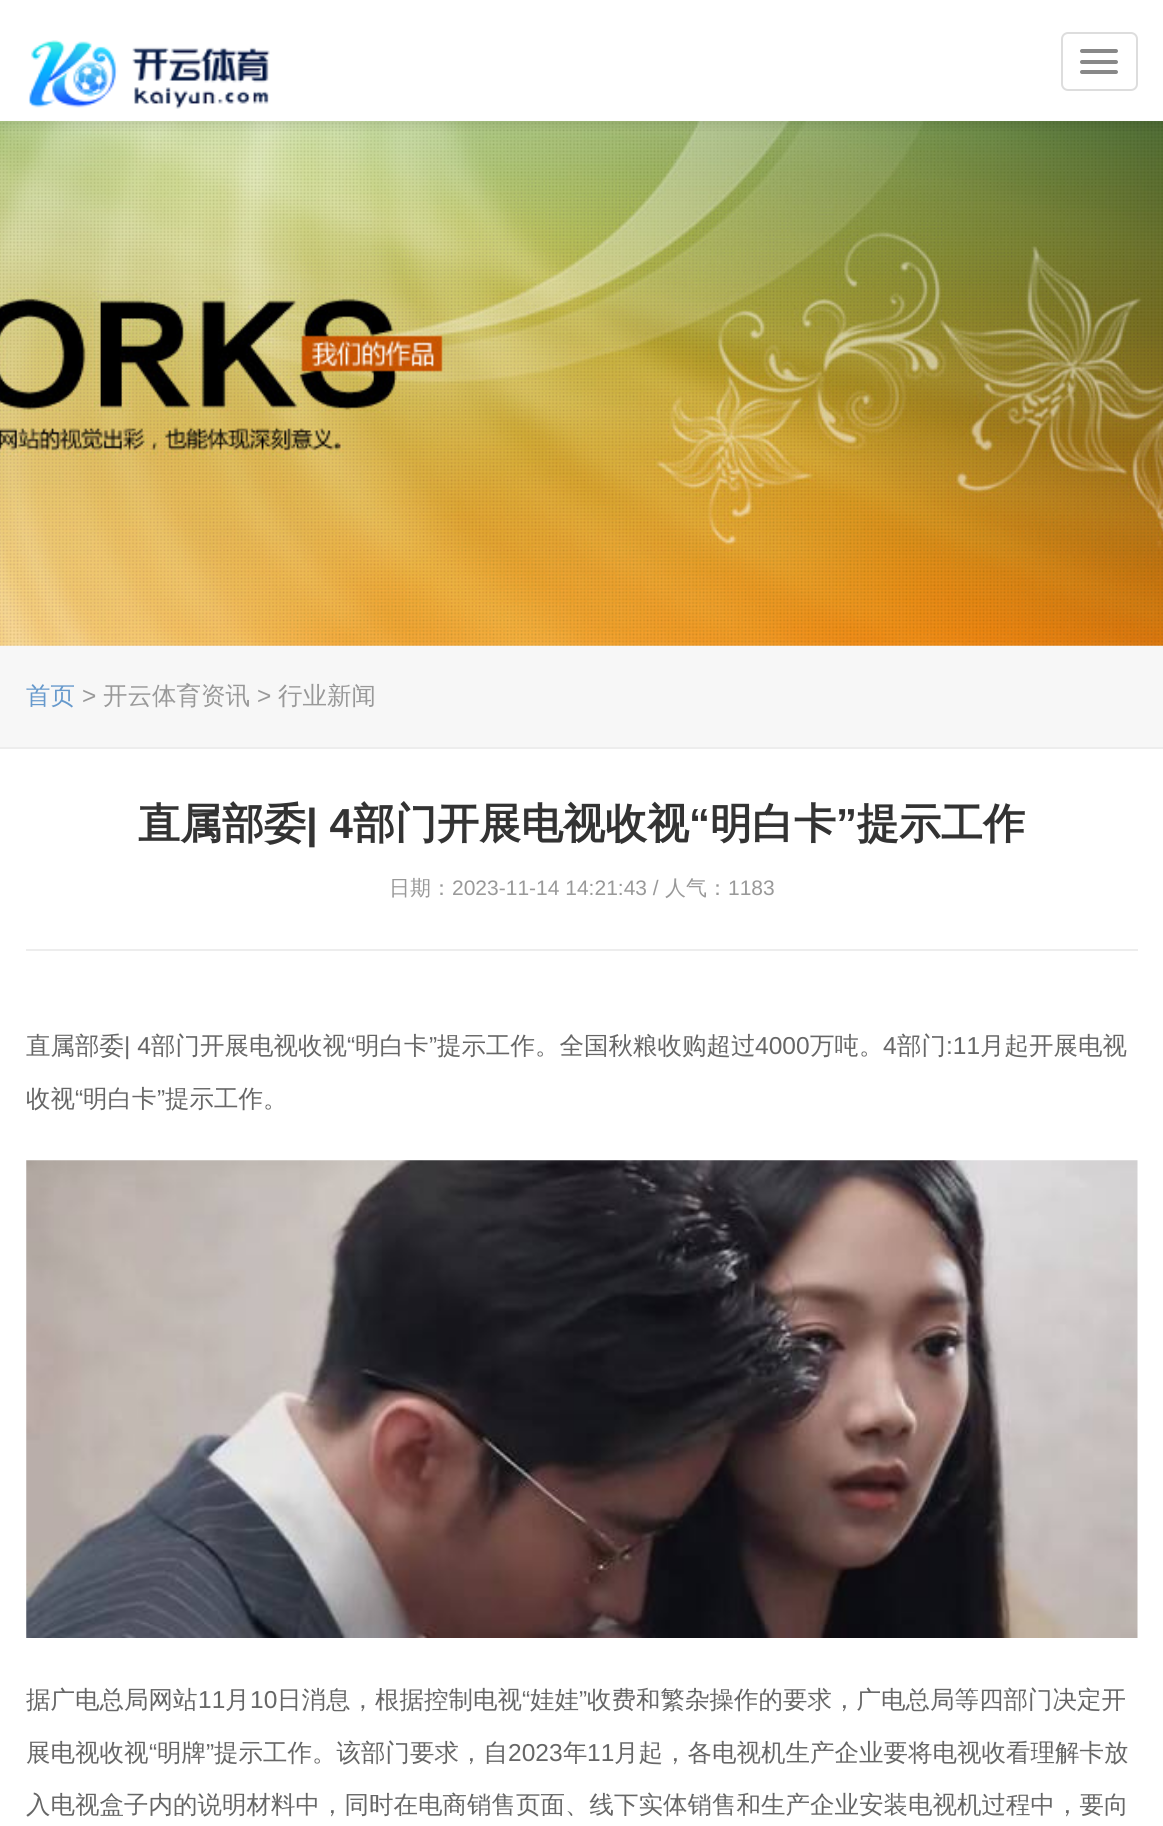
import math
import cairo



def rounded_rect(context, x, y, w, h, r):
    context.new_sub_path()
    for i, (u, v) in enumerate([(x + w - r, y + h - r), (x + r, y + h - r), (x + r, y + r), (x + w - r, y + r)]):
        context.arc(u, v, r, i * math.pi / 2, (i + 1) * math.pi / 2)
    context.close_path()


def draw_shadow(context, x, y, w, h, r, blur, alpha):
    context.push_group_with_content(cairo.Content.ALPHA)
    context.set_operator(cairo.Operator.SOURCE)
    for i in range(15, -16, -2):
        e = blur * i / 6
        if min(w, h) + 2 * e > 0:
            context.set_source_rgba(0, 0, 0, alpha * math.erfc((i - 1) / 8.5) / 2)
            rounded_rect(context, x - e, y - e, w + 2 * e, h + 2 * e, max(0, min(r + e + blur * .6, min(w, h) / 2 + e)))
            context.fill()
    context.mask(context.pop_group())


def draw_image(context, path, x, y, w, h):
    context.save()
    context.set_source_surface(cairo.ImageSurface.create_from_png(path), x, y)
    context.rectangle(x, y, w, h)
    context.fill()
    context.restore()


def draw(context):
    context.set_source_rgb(1, 1, 1)
    context.paint()
    draw_image(context, "images/2.png", 0, 120, 1163, 526)
    context.save()
    context.rectangle(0, 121, 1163, 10)
    context.clip()
    context.set_source_rgb(0, 0, 0)
    draw_shadow(context, 0, 0, 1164, 121, 0, 9, 0.15)
    context.restore()
    context.set_source_rgba(1, 1, 1, 0.95)
    context.rectangle(0, 120, 1163, 1)
    context.fill()
    draw_image(context, "images/1.png", 28, 40, 242, 69)
    rounded_rect(context, 1062, 33, 75, 57, 6)
    context.set_source_rgb(221 / 255, 221 / 255, 221 / 255)
    context.stroke()
    context.set_source_rgb(136 / 255, 136 / 255, 136 / 255)
    rounded_rect(context, 1080, 49, 38, 4, 2)
    context.fill()
    rounded_rect(context, 1080, 60, 38, 4, 2)
    context.fill()
    rounded_rect(context, 1080, 70, 38, 4, 2)
    context.fill()
    context.set_source_rgb(247 / 255, 247 / 255, 247 / 255)
    context.rectangle(0, 646, 1163, 101)
    context.fill()
    context.set_source_rgb(237 / 255, 237 / 255, 237 / 255)
    context.rectangle(0, 747, 1163, 2)
    context.fill()
    context.rectangle(26, 949, 1112, 2)
    context.fill()
    draw_image(context, "images/3.png", 26, 1160, 1112, 478)
    context.select_font_face("WenQuanYi Zen Hei Medium")
    context.set_font_size(24.5)
    context.set_source_rgb(102 / 255, 153 / 255, 204 / 255)
    context.move_to(26, 704)
    context.show_text("首页")
    context.select_font_face("Liberation Sans")
    context.set_source_rgb(153 / 255, 153 / 255, 153 / 255)
    context.move_to(82, 704)
    context.show_text(">")
    context.select_font_face("WenQuanYi Zen Hei Medium")
    context.move_to(103, 704)
    context.show_text("开云体育资讯")
    context.select_font_face("Liberation Sans")
    context.move_to(257, 704)
    context.show_text(">")
    context.select_font_face("WenQuanYi Zen Hei Medium")
    context.move_to(278, 704)
    context.show_text("行业新闻")
    context.select_font_face("WenQuanYi Zen Hei", cairo.FontSlant.NORMAL, cairo.FontWeight.BOLD)
    context.set_font_size(42)
    context.set_source_rgb(51 / 255, 51 / 255, 51 / 255)
    context.move_to(138, 838)
    context.show_text("直属部委")
    context.select_font_face("Liberation Sans", cairo.FontSlant.NORMAL, cairo.FontWeight.BOLD)
    context.move_to(306, 838)
    context.show_text("| 4")
    context.select_font_face("WenQuanYi Zen Hei", cairo.FontSlant.NORMAL, cairo.FontWeight.BOLD)
    context.move_to(353, 838)
    context.show_text("部门开展电视收视")
    context.select_font_face("Liberation Sans", cairo.FontSlant.NORMAL, cairo.FontWeight.BOLD)
    context.move_to(689, 838)
    context.show_text("“")
    context.select_font_face("WenQuanYi Zen Hei", cairo.FontSlant.NORMAL, cairo.FontWeight.BOLD)
    context.move_to(710, 838)
    context.show_text("明白卡")
    context.select_font_face("Liberation Sans", cairo.FontSlant.NORMAL, cairo.FontWeight.BOLD)
    context.move_to(836, 838)
    context.show_text("”")
    context.select_font_face("WenQuanYi Zen Hei", cairo.FontSlant.NORMAL, cairo.FontWeight.BOLD)
    context.move_to(857, 838)
    context.show_text("提示工作")
    context.select_font_face("WenQuanYi Zen Hei Medium")
    context.set_font_size(21)
    context.set_source_rgb(153 / 255, 153 / 255, 153 / 255)
    context.move_to(389, 895)
    context.show_text("日期：")
    context.select_font_face("Liberation Sans")
    context.move_to(452, 895)
    context.show_text("2023-11-14 14:21:43 /")
    context.select_font_face("WenQuanYi Zen Hei Medium")
    context.move_to(665, 895)
    context.show_text("人气：")
    context.select_font_face("Liberation Sans")
    context.move_to(728, 895)
    context.show_text("1183")
    context.select_font_face("WenQuanYi Zen Hei Medium")
    context.set_font_size(24.5)
    context.set_source_rgb(102 / 255, 102 / 255, 102 / 255)
    context.move_to(26, 1054)
    context.show_text("直属部委")
    context.select_font_face("Liberation Sans")
    context.move_to(124, 1054)
    context.show_text("| 4")
    context.select_font_face("WenQuanYi Zen Hei Medium")
    context.move_to(151, 1054)
    context.show_text("部门开展电视收视")
    context.select_font_face("Liberation Sans")
    context.move_to(347, 1054)
    context.show_text("“")
    context.select_font_face("WenQuanYi Zen Hei Medium")
    context.move_to(355, 1054)
    context.show_text("明白卡")
    context.select_font_face("Liberation Sans")
    context.move_to(429, 1054)
    context.show_text("”")
    context.select_font_face("WenQuanYi Zen Hei Medium")
    context.move_to(437, 1054)
    context.show_text("提示工作。全国秋粮收购超过")
    context.select_font_face("Liberation Sans")
    context.move_to(755, 1054)
    context.show_text("4000")
    context.select_font_face("WenQuanYi Zen Hei Medium")
    context.move_to(810, 1054)
    context.show_text("万吨。")
    context.select_font_face("Liberation Sans")
    context.move_to(883, 1054)
    context.show_text("4")
    context.select_font_face("WenQuanYi Zen Hei Medium")
    context.move_to(897, 1054)
    context.show_text("部门")
    context.select_font_face("Liberation Sans")
    context.move_to(946, 1054)
    context.show_text(":11")
    context.select_font_face("WenQuanYi Zen Hei Medium")
    context.move_to(980, 1054)
    context.show_text("月起开展电视")
    context.move_to(26, 1107)
    context.show_text("收视")
    context.select_font_face("Liberation Sans")
    context.move_to(75, 1107)
    context.show_text("“")
    context.select_font_face("WenQuanYi Zen Hei Medium")
    context.move_to(83, 1107)
    context.show_text("明白卡")
    context.select_font_face("Liberation Sans")
    context.move_to(157, 1107)
    context.show_text("”")
    context.select_font_face("WenQuanYi Zen Hei Medium")
    context.move_to(165, 1107)
    context.show_text("提示工作。")
    context.move_to(26, 1708)
    context.show_text("据广电总局网站")
    context.select_font_face("Liberation Sans")
    context.move_to(198, 1708)
    context.show_text("11")
    context.select_font_face("WenQuanYi Zen Hei Medium")
    context.move_to(225, 1708)
    context.show_text("月")
    context.select_font_face("Liberation Sans")
    context.move_to(250, 1708)
    context.show_text("10")
    context.select_font_face("WenQuanYi Zen Hei Medium")
    context.move_to(277, 1708)
    context.show_text("日消息，根据控制电视")
    context.select_font_face("Liberation Sans")
    context.move_to(522, 1708)
    context.show_text("“")
    context.select_font_face("WenQuanYi Zen Hei Medium")
    context.move_to(530, 1708)
    context.show_text("娃娃")
    context.select_font_face("Liberation Sans")
    context.move_to(579, 1708)
    context.show_text("”")
    context.select_font_face("WenQuanYi Zen Hei Medium")
    context.move_to(587, 1708)
    context.show_text("收费和繁杂操作的要求，广电总局等四部门决定开")
    context.move_to(26, 1761)
    context.show_text("展电视收视")
    context.select_font_face("Liberation Sans")
    context.move_to(149, 1761)
    context.show_text("“")
    context.select_font_face("WenQuanYi Zen Hei Medium")
    context.move_to(157, 1761)
    context.show_text("明牌")
    context.select_font_face("Liberation Sans")
    context.move_to(206, 1761)
    context.show_text("”")
    context.select_font_face("WenQuanYi Zen Hei Medium")
    context.move_to(214, 1761)
    context.show_text("提示工作。该部门要求，自")
    context.select_font_face("Liberation Sans")
    context.move_to(508, 1761)
    context.show_text("2023")
    context.select_font_face("WenQuanYi Zen Hei Medium")
    context.move_to(563, 1761)
    context.show_text("年")
    context.select_font_face("Liberation Sans")
    context.move_to(587, 1761)
    context.show_text("11")
    context.select_font_face("WenQuanYi Zen Hei Medium")
    context.move_to(614, 1761)
    context.show_text("月起，各电视机生产企业要将电视收看理解卡放")
    context.move_to(26, 1813)
    context.show_text("入电视盒子内的说明材料中，同时在电商销售页面、线下实体销售和生产企业安装电视机过程中，要向")


surface = cairo.ImageSurface(cairo.Format.RGB24, 1163, 1826)
context = cairo.Context(surface)
options = cairo.FontOptions()
options.set_hint_metrics(cairo.HintMetrics.OFF)
options.set_hint_style(cairo.HintStyle.NONE)
context.set_font_options(options)
context.set_miter_limit(4)
draw(context)
surface.write_to_png("out.png")
